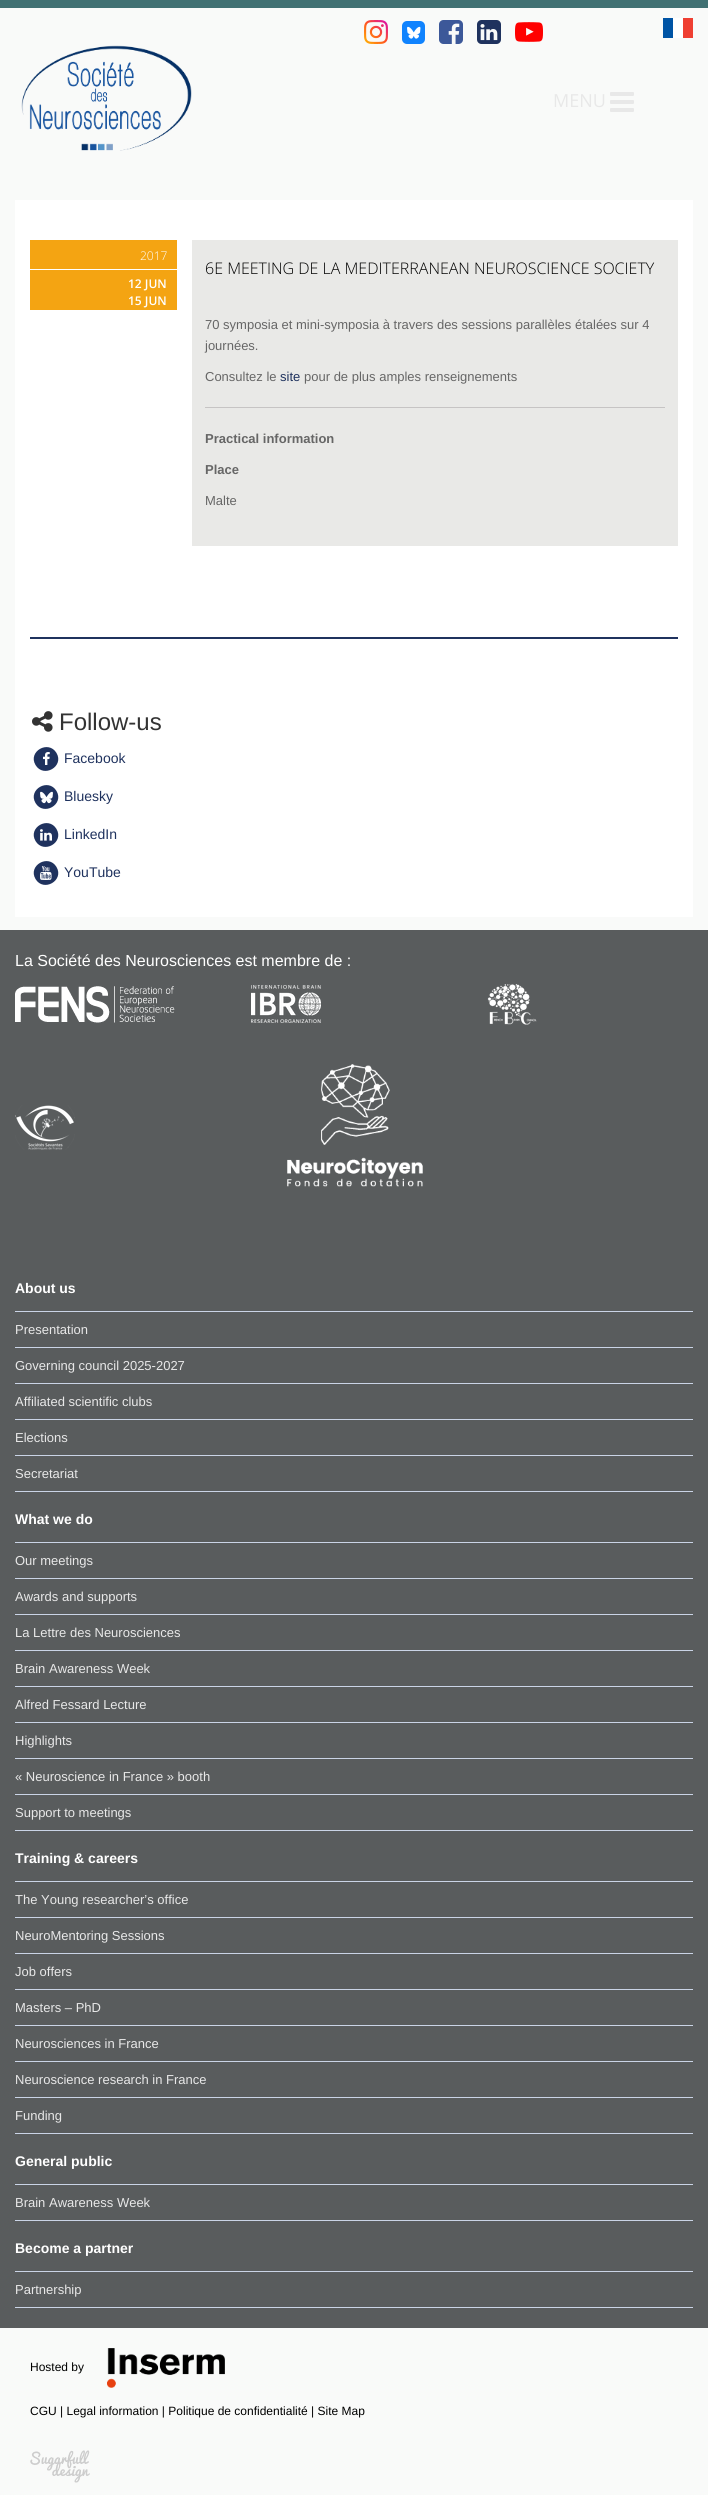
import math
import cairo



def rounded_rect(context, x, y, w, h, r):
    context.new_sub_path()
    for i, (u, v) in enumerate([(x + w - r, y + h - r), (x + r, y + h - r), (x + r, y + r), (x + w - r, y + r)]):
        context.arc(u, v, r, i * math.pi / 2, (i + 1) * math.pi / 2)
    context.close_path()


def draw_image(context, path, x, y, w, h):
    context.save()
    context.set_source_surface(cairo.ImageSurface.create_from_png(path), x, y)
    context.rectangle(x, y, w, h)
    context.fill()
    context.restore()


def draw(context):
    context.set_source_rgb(249 / 255, 250 / 255, 249 / 255)
    context.paint()
    context.set_source_rgb(65 / 255, 113 / 255, 115 / 255)
    context.rectangle(0, 0, 708, 8)
    context.fill()
    draw_image(context, "images/1.png", 364, 20, 24, 24)
    context.set_source_rgb(16 / 255, 131 / 255, 254 / 255)
    rounded_rect(context, 402, 21, 23, 23, 5)
    context.fill()
    draw_image(context, "images/2.png", 407, 26, 14, 13)
    draw_image(context, "images/3.png", 439, 20, 24, 24)
    draw_image(context, "images/4.png", 477, 20, 24, 24)
    draw_image(context, "images/5.png", 515, 22, 28, 20)
    draw_image(context, "images/6.png", 663, 18, 30, 20)
    draw_image(context, "images/7.png", 21, 45, 171, 106)
    draw_image(context, "images/8.png", 610, 92, 24, 20)
    context.set_source_rgb(1, 1, 1)
    context.rectangle(15, 200, 678, 717)
    context.fill()
    context.set_source_rgb(244 / 255, 164 / 255, 18 / 255)
    context.rectangle(30, 240, 147, 70)
    context.fill()
    context.set_source_rgb(1, 1, 1)
    context.rectangle(30, 269, 147, 1)
    context.fill()
    context.set_source_rgb(233 / 255, 233 / 255, 231 / 255)
    context.rectangle(192, 240, 486, 306)
    context.fill()
    context.set_source_rgb(198 / 255, 196 / 255, 196 / 255)
    context.rectangle(205, 407, 460, 1)
    context.fill()
    context.set_source_rgb(31 / 255, 50 / 255, 94 / 255)
    context.rectangle(30, 637, 648, 2)
    context.fill()
    draw_image(context, "images/9.png", 32, 711, 21, 21)
    context.new_path()
    context.move_to(56.5, 753)
    context.curve_to(64.5, 766.5, 43.5, 778.5, 35.5, 765)
    context.curve_to(27.5, 751.5, 48.5, 739.5, 56.5, 753)
    context.close_path()
    context.fill()
    draw_image(context, "images/10.png", 43, 752, 7, 13)
    context.new_path()
    context.move_to(56.5, 791)
    context.curve_to(64.5, 804.5, 43.5, 816.5, 35.5, 803)
    context.curve_to(27.5, 789.5, 48.5, 777.5, 56.5, 791)
    context.close_path()
    context.fill()
    draw_image(context, "images/11.png", 40, 791, 13, 13)
    context.new_path()
    context.move_to(56.5, 829)
    context.curve_to(64.5, 842.5, 43.5, 854.5, 35.5, 841)
    context.curve_to(27.5, 827.5, 48.5, 815.5, 56.5, 829)
    context.close_path()
    context.fill()
    draw_image(context, "images/12.png", 40, 829, 12, 12)
    context.new_path()
    context.move_to(56.5, 867)
    context.curve_to(64.5, 880.5, 43.5, 892.5, 35.5, 879)
    context.curve_to(27.5, 865.5, 48.5, 853.5, 56.5, 867)
    context.close_path()
    context.fill()
    draw_image(context, "images/13.png", 40, 866, 12, 14)
    context.set_source_rgb(89 / 255, 92 / 255, 93 / 255)
    context.rectangle(0, 930, 708, 1398)
    context.fill()
    draw_image(context, "images/14.png", 15, 986, 160, 37)
    draw_image(context, "images/15.png", 251, 985, 70, 38)
    draw_image(context, "images/16.png", 487, 984, 50, 41)
    draw_image(context, "images/17.png", 15, 1105, 60, 45)
    draw_image(context, "images/18.png", 287, 1064, 136, 123)
    context.set_source_rgb(202 / 255, 212 / 255, 230 / 255)
    context.rectangle(15, 1311, 678, 1)
    context.fill()
    context.rectangle(15, 1347, 678, 1)
    context.fill()
    context.rectangle(15, 1383, 678, 1)
    context.fill()
    context.rectangle(15, 1419, 678, 1)
    context.fill()
    context.rectangle(15, 1455, 678, 1)
    context.fill()
    context.rectangle(15, 1491, 678, 1)
    context.fill()
    context.rectangle(15, 1542, 678, 1)
    context.fill()
    context.rectangle(15, 1578, 678, 1)
    context.fill()
    context.rectangle(15, 1614, 678, 1)
    context.fill()
    context.rectangle(15, 1650, 678, 1)
    context.fill()
    context.rectangle(15, 1686, 678, 1)
    context.fill()
    context.rectangle(15, 1722, 678, 1)
    context.fill()
    context.rectangle(15, 1758, 678, 1)
    context.fill()
    context.rectangle(15, 1794, 678, 1)
    context.fill()
    context.rectangle(15, 1830, 678, 1)
    context.fill()
    context.rectangle(15, 1881, 678, 1)
    context.fill()
    context.rectangle(15, 1917, 678, 1)
    context.fill()
    context.rectangle(15, 1953, 678, 1)
    context.fill()
    context.rectangle(15, 1989, 678, 1)
    context.fill()
    context.rectangle(15, 2025, 678, 1)
    context.fill()
    context.rectangle(15, 2061, 678, 1)
    context.fill()
    context.rectangle(15, 2097, 678, 1)
    context.fill()
    context.rectangle(15, 2133, 678, 1)
    context.fill()
    context.rectangle(15, 2184, 678, 1)
    context.fill()
    context.rectangle(15, 2220, 678, 1)
    context.fill()
    context.rectangle(15, 2271, 678, 1)
    context.fill()
    context.rectangle(15, 2307, 678, 1)
    context.fill()
    draw_image(context, "images/19.png", 107, 2348, 118, 40)
    draw_image(context, "images/20.png", 30, 2450, 60, 33)
    context.select_font_face("Open Sans")
    context.set_font_size(18)
    context.set_source_rgb(232 / 255, 232 / 255, 232 / 255)
    context.move_to(553, 107)
    context.show_text("MENU")
    context.select_font_face("Open Sans Light")
    context.set_font_size(12)
    context.set_source_rgb(1, 1, 1)
    context.move_to(140, 260)
    context.show_text("2017")
    context.select_font_face("Open Sans SemiBold")
    context.move_to(128, 288)
    context.show_text("12 JUN")
    context.move_to(128, 305)
    context.show_text("15 JUN")
    context.select_font_face("Open Sans Light")
    context.set_font_size(16)
    context.set_source_rgb(0, 0, 0)
    context.move_to(205, 274)
    context.show_text("6E MEETING DE LA MEDITERRANEAN NEUROSCIENCE SOCIETY")
    context.select_font_face("Liberation Sans")
    context.set_font_size(13)
    context.set_source_rgb(102 / 255, 102 / 255, 102 / 255)
    context.move_to(205, 329)
    context.show_text("70 symposia et mini-symposia à travers des sessions parallèles étalées sur 4")
    context.move_to(205, 350)
    context.show_text("journées.")
    context.move_to(205, 381)
    context.show_text("Consultez le")
    context.set_source_rgb(31 / 255, 50 / 255, 94 / 255)
    context.move_to(280, 381)
    context.show_text("site")
    context.set_source_rgb(102 / 255, 102 / 255, 102 / 255)
    context.move_to(304, 381)
    context.show_text("pour de plus amples renseignements")
    context.select_font_face("Liberation Sans", cairo.FontSlant.NORMAL, cairo.FontWeight.BOLD)
    context.move_to(205, 443)
    context.show_text("Practical information")
    context.move_to(205, 474)
    context.show_text("Place")
    context.select_font_face("Liberation Sans")
    context.move_to(205, 505)
    context.show_text("Malte")
    context.set_font_size(24)
    context.set_source_rgb(51 / 255, 51 / 255, 51 / 255)
    context.move_to(59, 730)
    context.show_text("Follow-us")
    context.set_font_size(14)
    context.set_source_rgb(31 / 255, 50 / 255, 94 / 255)
    context.move_to(64, 763)
    context.show_text("Facebook")
    context.move_to(64, 801)
    context.show_text("Bluesky")
    context.move_to(64, 839)
    context.show_text("LinkedIn")
    context.move_to(64, 877)
    context.show_text("YouTube")
    context.set_font_size(16)
    context.set_source_rgb(1, 1, 1)
    context.move_to(15, 966)
    context.show_text("La Société des Neurosciences est membre de :")
    context.select_font_face("Liberation Sans", cairo.FontSlant.NORMAL, cairo.FontWeight.BOLD)
    context.set_font_size(14)
    context.move_to(15, 1293)
    context.show_text("About us")
    context.select_font_face("Liberation Sans")
    context.set_font_size(13)
    context.set_source_rgb(232 / 255, 232 / 255, 232 / 255)
    context.move_to(15, 1334)
    context.show_text("Presentation")
    context.move_to(15, 1370)
    context.show_text("Governing council 2025-2027")
    context.move_to(15, 1406)
    context.show_text("Affiliated scientific clubs")
    context.move_to(15, 1442)
    context.show_text("Elections")
    context.move_to(15, 1478)
    context.show_text("Secretariat")
    context.select_font_face("Liberation Sans", cairo.FontSlant.NORMAL, cairo.FontWeight.BOLD)
    context.set_font_size(14)
    context.set_source_rgb(1, 1, 1)
    context.move_to(15, 1524)
    context.show_text("What we do")
    context.select_font_face("Liberation Sans")
    context.set_font_size(13)
    context.set_source_rgb(232 / 255, 232 / 255, 232 / 255)
    context.move_to(15, 1565)
    context.show_text("Our meetings")
    context.move_to(15, 1601)
    context.show_text("Awards and supports")
    context.move_to(15, 1637)
    context.show_text("La Lettre des Neurosciences")
    context.move_to(15, 1673)
    context.show_text("Brain Awareness Week")
    context.move_to(15, 1709)
    context.show_text("Alfred Fessard Lecture")
    context.move_to(15, 1745)
    context.show_text("Highlights")
    context.move_to(15, 1781)
    context.show_text("« Neuroscience in France » booth")
    context.move_to(15, 1817)
    context.show_text("Support to meetings")
    context.select_font_face("Liberation Sans", cairo.FontSlant.NORMAL, cairo.FontWeight.BOLD)
    context.set_font_size(14)
    context.set_source_rgb(1, 1, 1)
    context.move_to(15, 1863)
    context.show_text("Training & careers")
    context.select_font_face("Liberation Sans")
    context.set_font_size(13)
    context.set_source_rgb(232 / 255, 232 / 255, 232 / 255)
    context.move_to(15, 1904)
    context.show_text("The Young researcher’s office")
    context.move_to(15, 1940)
    context.show_text("NeuroMentoring Sessions")
    context.move_to(15, 1976)
    context.show_text("Job offers")
    context.move_to(15, 2012)
    context.show_text("Masters – PhD")
    context.move_to(15, 2048)
    context.show_text("Neurosciences in France")
    context.move_to(15, 2084)
    context.show_text("Neuroscience research in France")
    context.move_to(15, 2120)
    context.show_text("Funding")
    context.select_font_face("Liberation Sans", cairo.FontSlant.NORMAL, cairo.FontWeight.BOLD)
    context.set_font_size(14)
    context.set_source_rgb(1, 1, 1)
    context.move_to(15, 2166)
    context.show_text("General public")
    context.select_font_face("Liberation Sans")
    context.set_font_size(13)
    context.set_source_rgb(232 / 255, 232 / 255, 232 / 255)
    context.move_to(15, 2207)
    context.show_text("Brain Awareness Week")
    context.select_font_face("Liberation Sans", cairo.FontSlant.NORMAL, cairo.FontWeight.BOLD)
    context.set_font_size(14)
    context.set_source_rgb(1, 1, 1)
    context.move_to(15, 2253)
    context.show_text("Become a partner")
    context.select_font_face("Liberation Sans")
    context.set_font_size(13)
    context.set_source_rgb(232 / 255, 232 / 255, 232 / 255)
    context.move_to(15, 2294)
    context.show_text("Partnership")
    context.set_font_size(12)
    context.set_source_rgb(0, 0, 0)
    context.move_to(30, 2371)
    context.show_text("Hosted by")
    context.move_to(30, 2415)
    context.show_text("CGU | Legal information | Politique de confidentialité | Site Map")


surface = cairo.ImageSurface(cairo.Format.RGB24, 708, 2495)
context = cairo.Context(surface)
options = cairo.FontOptions()
options.set_hint_metrics(cairo.HintMetrics.OFF)
options.set_hint_style(cairo.HintStyle.NONE)
context.set_font_options(options)
context.set_miter_limit(4)
draw(context)
surface.write_to_png("out.png")
